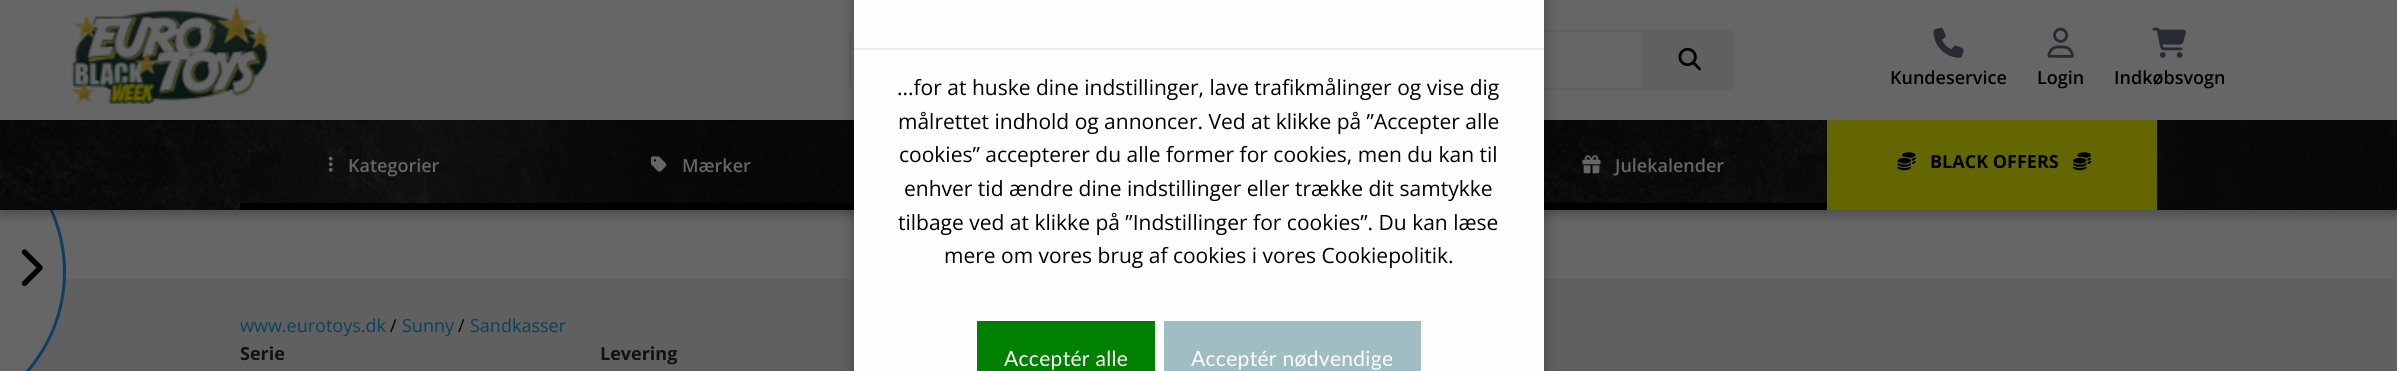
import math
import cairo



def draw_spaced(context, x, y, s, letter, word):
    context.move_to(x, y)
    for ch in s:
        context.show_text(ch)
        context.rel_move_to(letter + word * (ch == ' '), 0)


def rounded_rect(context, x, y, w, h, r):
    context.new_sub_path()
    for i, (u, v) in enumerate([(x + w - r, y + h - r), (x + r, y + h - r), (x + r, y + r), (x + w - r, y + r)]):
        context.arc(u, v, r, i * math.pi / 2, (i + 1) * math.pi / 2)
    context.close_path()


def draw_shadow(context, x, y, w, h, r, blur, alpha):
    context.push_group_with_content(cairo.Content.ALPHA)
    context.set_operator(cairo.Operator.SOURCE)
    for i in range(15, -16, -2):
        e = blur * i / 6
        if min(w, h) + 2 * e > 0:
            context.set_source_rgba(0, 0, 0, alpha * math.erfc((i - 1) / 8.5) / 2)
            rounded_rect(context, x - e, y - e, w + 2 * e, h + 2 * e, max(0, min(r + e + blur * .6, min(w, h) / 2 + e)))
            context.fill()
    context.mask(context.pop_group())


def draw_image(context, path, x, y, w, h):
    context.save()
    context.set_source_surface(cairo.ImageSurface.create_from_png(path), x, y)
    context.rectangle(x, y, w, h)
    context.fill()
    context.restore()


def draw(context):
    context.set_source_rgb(102 / 255, 102 / 255, 102 / 255)
    context.paint()
    context.set_source_rgb(96 / 255, 96 / 255, 96 / 255)
    context.rectangle(29, 279, 2368, 92)
    context.fill()
    context.set_source_rgb(102 / 255, 102 / 255, 102 / 255)
    rounded_rect(context, -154.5, 120.5, 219, 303, 151.5)
    context.fill_preserve()
    context.set_source_rgb(15 / 255, 61 / 255, 100 / 255)
    context.set_line_width(3)
    context.stroke()
    draw_image(context, "images/1.png", 21, 249, 22, 38)
    context.set_source_rgb(0, 0, 0)
    draw_shadow(context, 0, 5, 2397, 210, 0, 4.5, 0.25)
    context.set_source_rgb(102 / 255, 102 / 255, 102 / 255)
    context.rectangle(0, 0, 2397, 120)
    context.fill()
    draw_image(context, "images/2.png", 71, 6, 201, 98)
    context.new_path()
    context.move_to(855, 31)
    context.line_to(1643, 31)
    context.line_to(1643, 89)
    context.line_to(855, 89)
    context.curve_to(852, 89, 850, 87, 850, 84)
    context.line_to(850, 36)
    context.curve_to(850, 33, 852, 31, 855, 31)
    context.close_path()
    context.set_source_rgb(94 / 255, 96 / 255, 98 / 255)
    context.set_line_width(2)
    context.stroke()
    context.new_path()
    context.move_to(1644, 30)
    context.line_to(1728, 30)
    context.curve_to(1731.5, 30, 1734, 32.5, 1734, 36)
    context.line_to(1734, 84)
    context.curve_to(1734, 87.5, 1731.5, 90, 1728, 90)
    context.line_to(1644, 90)
    context.close_path()
    context.fill()
    draw_image(context, "images/3.png", 1678, 47, 23, 24)
    draw_image(context, "images/4.png", 1933, 27, 31, 31)
    draw_image(context, "images/5.png", 2047, 27, 27, 31)
    draw_image(context, "images/6.png", 2152, 27, 34, 31)
    draw_image(context, "images/7.png", 0, 120, 2397, 90)
    context.set_source_rgb(0, 0, 0)
    context.rectangle(240, 203, 614, 7)
    context.fill()
    draw_image(context, "images/8.png", 328, 156, 5, 16)
    draw_image(context, "images/9.png", 651, 156, 16, 16)
    context.rectangle(1544, 203, 283, 7)
    context.fill()
    draw_image(context, "images/10.png", 1582, 155, 19, 19)
    context.set_source_rgb(99 / 255, 102 / 255, 1 / 255)
    context.rectangle(1827, 120, 330, 90)
    context.fill()
    draw_image(context, "images/11.png", 1897, 152, 19, 19)
    draw_image(context, "images/12.png", 2073, 152, 18, 19)
    context.set_source_rgb(0, 0, 0)
    draw_shadow(context, 854, -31, 690, 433, 8, 7.5, 0.3)
    context.set_source_rgb(254 / 255, 254 / 255, 254 / 255)
    context.rectangle(854, 0, 690, 371)
    context.fill()
    context.set_source_rgb(238 / 255, 238 / 255, 238 / 255)
    context.rectangle(854, 48, 690, 2)
    context.fill()
    context.set_source_rgb(0, 128 / 255, 0)
    context.rectangle(977, 321, 178, 50)
    context.fill()
    context.set_source_rgb(159 / 255, 189 / 255, 195 / 255)
    context.rectangle(1164, 321, 257, 50)
    context.fill()
    context.select_font_face("Open Sans SemiBold")
    context.set_font_size(18)
    context.set_source_rgb(0, 0, 0)
    context.move_to(1890, 84)
    context.show_text("Kundeservice")
    context.move_to(2037, 84)
    context.show_text("Login")
    context.move_to(2114, 84)
    context.show_text("Indkøbsvogn")
    context.set_source_rgb(102 / 255, 102 / 255, 102 / 255)
    context.move_to(348, 172)
    context.show_text("Kategorier")
    context.move_to(682, 172)
    context.show_text("Mærker")
    context.move_to(1615, 172)
    context.show_text("Julekalender")
    context.select_font_face("Open Sans", cairo.FontSlant.NORMAL, cairo.FontWeight.BOLD)
    context.set_source_rgb(0, 0, 0)
    context.move_to(1930, 168)
    context.show_text("BLACK OFFERS")
    context.select_font_face("Open Sans")
    context.set_source_rgb(9 / 255, 66 / 255, 90 / 255)
    context.move_to(240, 332)
    context.show_text("www.eurotoys.dk")
    context.set_source_rgb(0, 0, 0)
    context.move_to(390, 332)
    context.show_text("/")
    context.set_source_rgb(9 / 255, 66 / 255, 90 / 255)
    context.move_to(402, 332)
    context.show_text("Sunny")
    context.set_source_rgb(0, 0, 0)
    context.move_to(458, 332)
    context.show_text("/")
    context.set_source_rgb(9 / 255, 66 / 255, 90 / 255)
    context.move_to(470, 332)
    context.show_text("Sandkasser")
    context.select_font_face("Open Sans", cairo.FontSlant.NORMAL, cairo.FontWeight.BOLD)
    context.set_source_rgb(17 / 255, 17 / 255, 17 / 255)
    context.move_to(240, 360)
    context.show_text("Serie")
    context.move_to(600, 360)
    context.show_text("Levering")
    context.select_font_face("Open Sans")
    context.set_font_size(21)
    context.set_source_rgb(0, 0, 0)
    context.move_to(897, 95)
    context.show_text("...for at huske dine indstillinger, lave trafikmålinger og vise dig")
    context.move_to(898, 129)
    context.show_text("målrettet indhold og annoncer. Ved at klikke på ”Accepter alle")
    context.move_to(899, 162)
    context.show_text("cookies” accepterer du alle former for cookies, men du kan til")
    context.move_to(904, 196)
    context.show_text("enhver tid ændre dine indstillinger eller trække dit samtykke")
    context.move_to(898, 230)
    context.show_text("tilbage ved at klikke på ”Indstillinger for cookies”. Du kan læse")
    context.move_to(944, 263)
    context.show_text("mere om vores brug af cookies i vores Cookiepolitik.")
    context.select_font_face("Lato")
    context.set_source_rgb(1, 1, 1)
    draw_spaced(context, 1004, 366, "Acceptér alle", 0.3, 0)
    draw_spaced(context, 1191, 366, "Acceptér nødvendige", 0.3, 0)


surface = cairo.ImageSurface(cairo.Format.RGB24, 2397, 371)
context = cairo.Context(surface)
options = cairo.FontOptions()
options.set_hint_metrics(cairo.HintMetrics.OFF)
options.set_hint_style(cairo.HintStyle.NONE)
context.set_font_options(options)
context.set_miter_limit(4)
draw(context)
surface.write_to_png("out.png")
